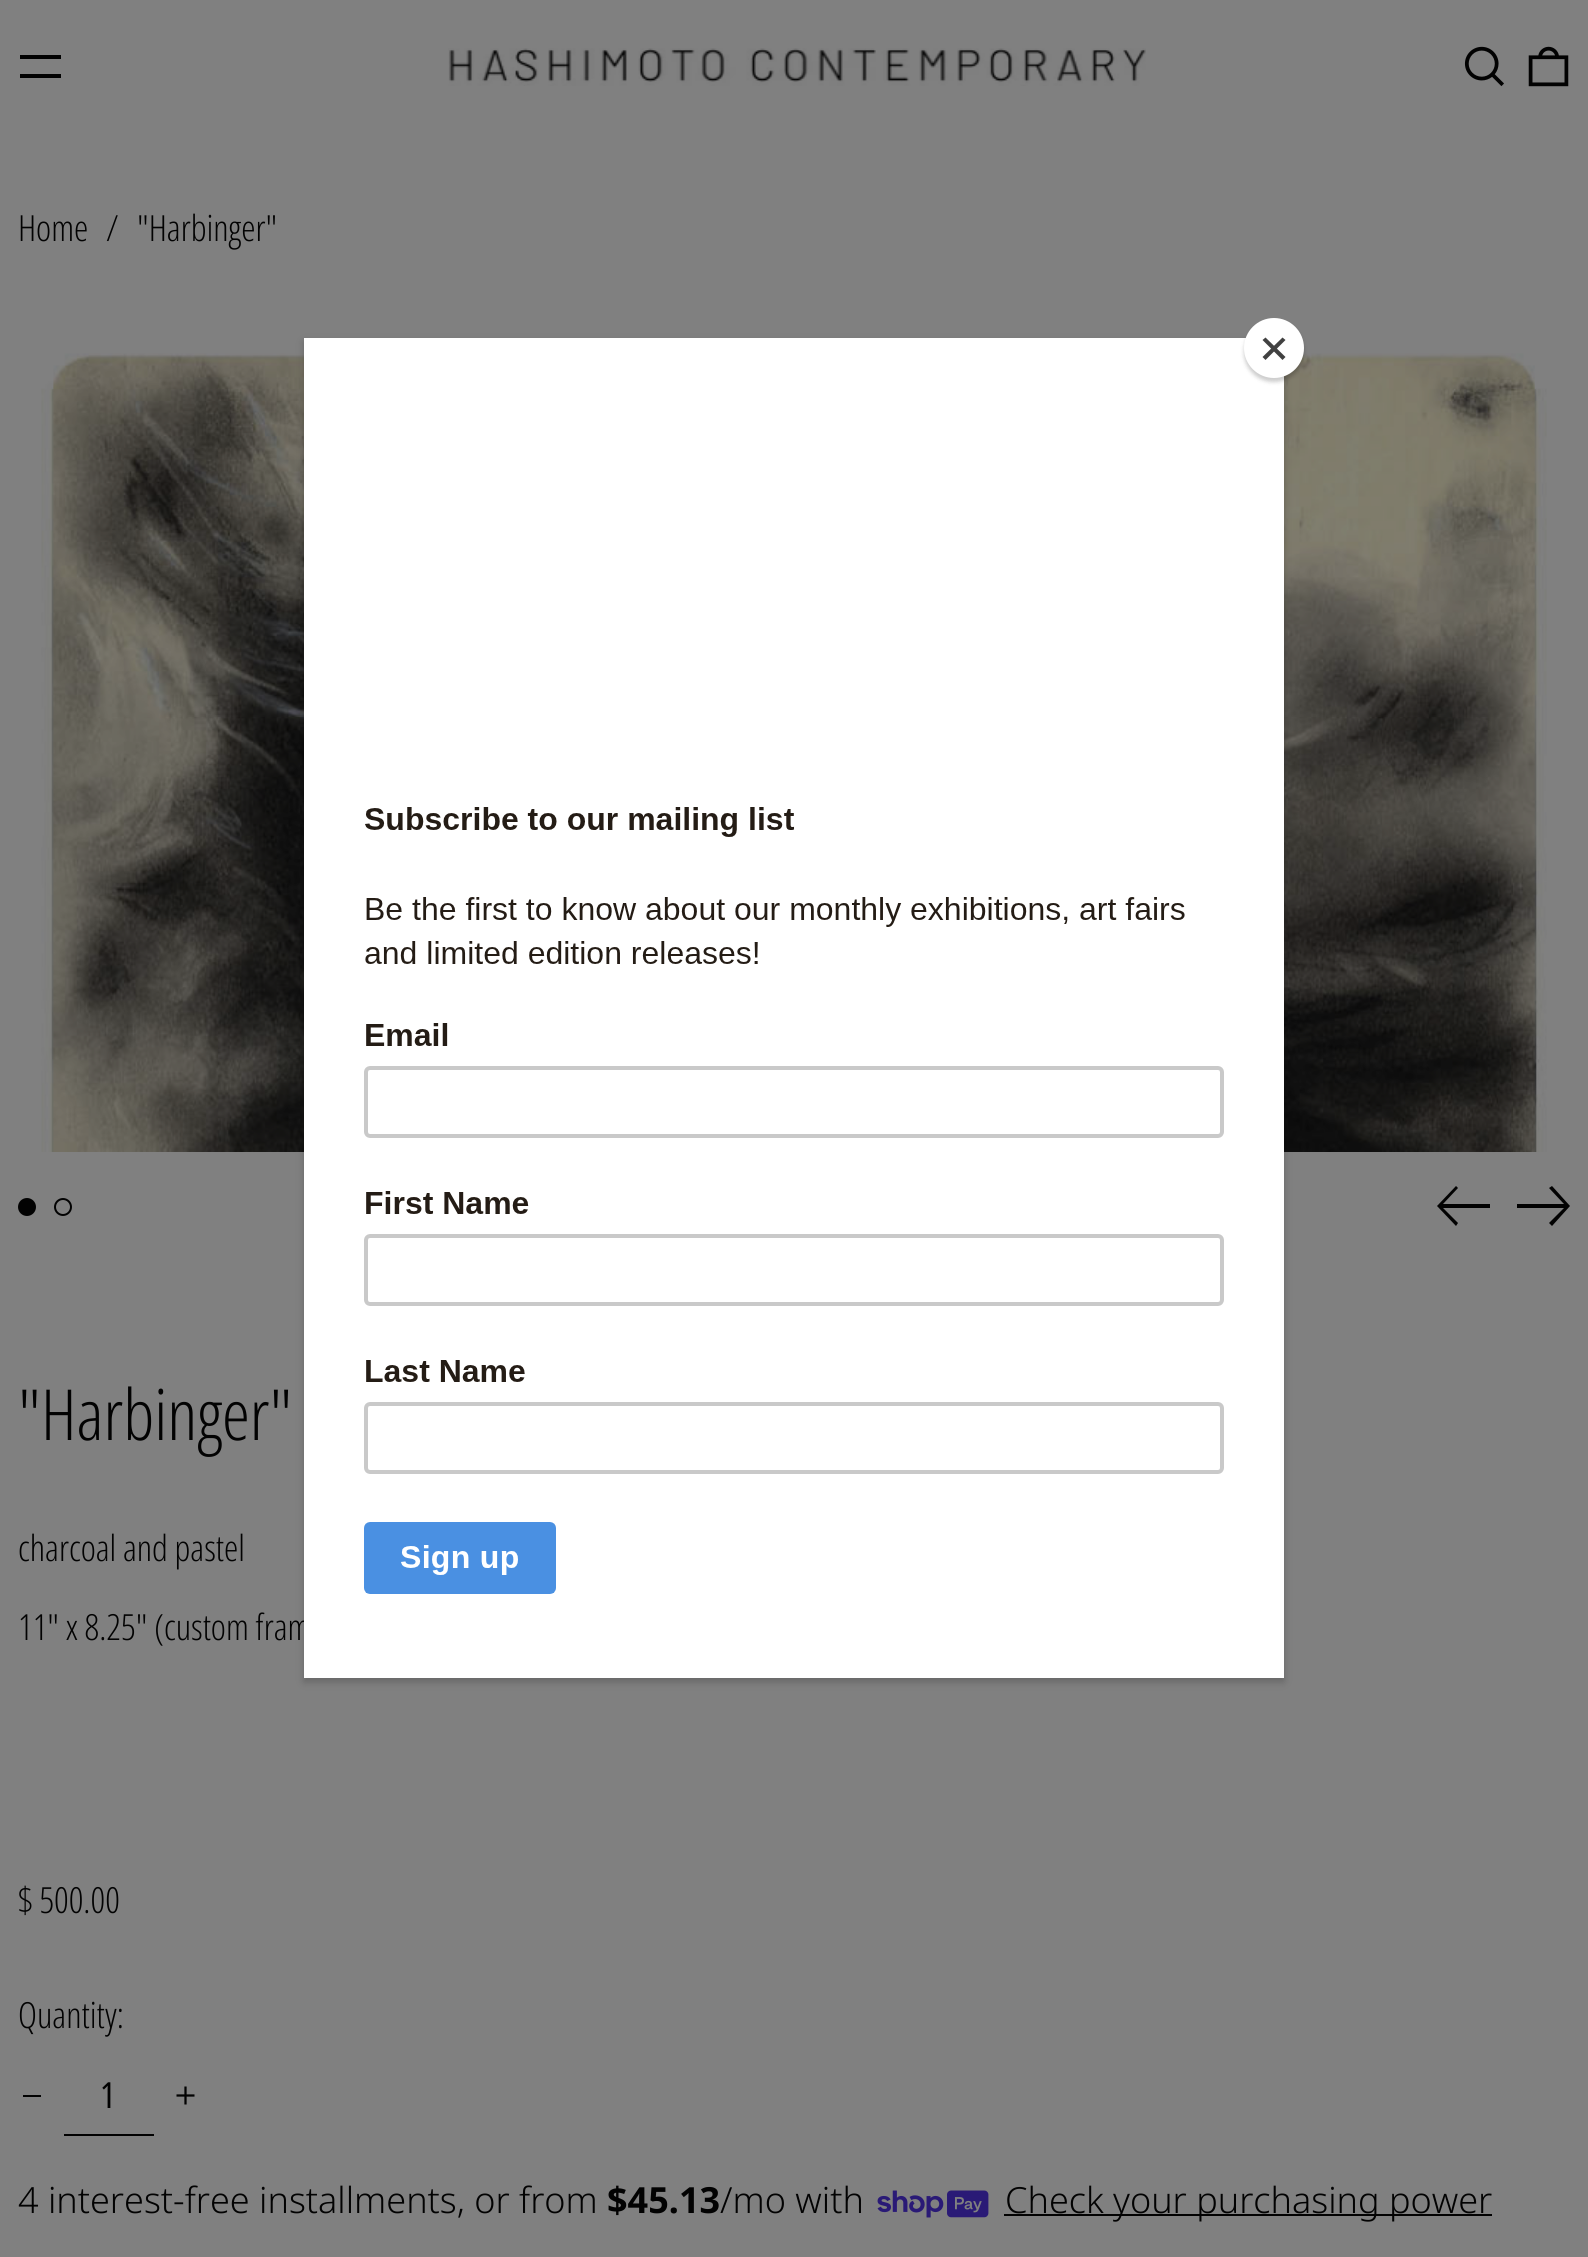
import math
import cairo



def rounded_rect(context, x, y, w, h, r):
    context.new_sub_path()
    for i, (u, v) in enumerate([(x + w - r, y + h - r), (x + r, y + h - r), (x + r, y + r), (x + w - r, y + r)]):
        context.arc(u, v, r, i * math.pi / 2, (i + 1) * math.pi / 2)
    context.close_path()


def draw_shadow(context, x, y, w, h, r, blur, alpha):
    context.push_group_with_content(cairo.Content.ALPHA)
    context.set_operator(cairo.Operator.SOURCE)
    for i in range(15, -16, -2):
        e = blur * i / 6
        if min(w, h) + 2 * e > 0:
            context.set_source_rgba(0, 0, 0, alpha * math.erfc((i - 1) / 8.5) / 2)
            rounded_rect(context, x - e, y - e, w + 2 * e, h + 2 * e, max(0, min(r + e + blur * .6, min(w, h) / 2 + e)))
            context.fill()
    context.mask(context.pop_group())


def draw_image(context, path, x, y, w, h):
    context.save()
    context.set_source_surface(cairo.ImageSurface.create_from_png(path), x, y)
    context.rectangle(x, y, w, h)
    context.fill()
    context.restore()


def draw(context):
    context.set_source_rgb(128 / 255, 128 / 255, 128 / 255)
    context.paint()
    context.set_source_rgb(2 / 255, 2 / 255, 2 / 255)
    context.set_fill_rule(cairo.FillRule.EVEN_ODD)
    context.new_path()
    context.move_to(61, 74)
    context.line_to(61, 78)
    context.line_to(20, 78)
    context.line_to(20, 74)
    context.close_path()
    context.move_to(61, 55)
    context.line_to(61, 59)
    context.line_to(20, 59)
    context.line_to(20, 55)
    context.close_path()
    context.fill()
    draw_image(context, "images/1.png", 448, 48, 698, 38)
    draw_image(context, "images/2.png", 1464, 46, 40, 41)
    draw_image(context, "images/3.png", 1528, 46, 41, 41)
    draw_image(context, "images/4.png", 41, 353, 1506, 799)
    context.arc(27, 1207, 8, 0, 2 * math.pi)
    context.fill_preserve()
    context.stroke()
    context.arc(63, 1207, 8, 0, 2 * math.pi)
    context.stroke()
    context.set_fill_rule(cairo.FillRule.WINDING)
    context.new_path()
    context.move_to(1456, 1186)
    context.line_to(1437, 1206)
    context.line_to(1456, 1226)
    context.line_to(1458, 1223)
    context.line_to(1443, 1208)
    context.line_to(1490, 1208)
    context.line_to(1490, 1204)
    context.line_to(1443, 1204)
    context.line_to(1458, 1188)
    context.close_path()
    context.fill()
    context.new_path()
    context.move_to(1552, 1186)
    context.line_to(1570, 1206)
    context.line_to(1552, 1226)
    context.line_to(1549, 1223)
    context.line_to(1564, 1208)
    context.line_to(1517, 1208)
    context.line_to(1517, 1204)
    context.line_to(1564, 1204)
    context.line_to(1549, 1188)
    context.close_path()
    context.fill()
    context.rectangle(23, 2095, 18, 2)
    context.fill()
    context.rectangle(64, 2134, 90, 2)
    context.fill()
    draw_image(context, "images/5.png", 176, 2086, 19, 19)
    draw_image(context, "images/6.png", 877, 2190, 112, 28)
    context.rectangle(1004, 2214, 488, 2)
    context.fill()
    context.set_source_rgb(0, 0, 0)
    draw_shadow(context, 304, 342, 980, 1340, 0, 4, 0.2)
    context.select_font_face("Open Sans Condensed Light")
    context.set_font_size(36)
    context.set_source_rgb(2 / 255, 2 / 255, 2 / 255)
    context.move_to(18, 241)
    context.show_text("Home")
    context.move_to(106, 241)
    context.show_text("/")
    context.move_to(137, 241)
    context.show_text("\"Harbinger\"")
    context.set_font_size(70.5)
    context.move_to(18, 1440)
    context.show_text("\"Harbinger\"")
    context.set_font_size(36)
    context.move_to(18, 1561)
    context.show_text("charcoal and pastel")
    context.move_to(18, 1640)
    context.show_text("11\" x 8.25\" (custom fram")
    context.move_to(18, 1913)
    context.show_text("$ 500.00")
    context.move_to(18, 2028)
    context.show_text("Quantity:")
    context.select_font_face("Open Sans Condensed")
    context.move_to(100, 2108)
    context.show_text("1")
    context.select_font_face("Noto Sans Light")
    context.move_to(18, 2213)
    context.show_text("4 interest-free installments, or from")
    context.select_font_face("Noto Sans", cairo.FontSlant.NORMAL, cairo.FontWeight.BOLD)
    context.move_to(607, 2213)
    context.show_text("$45.13")
    context.select_font_face("Noto Sans Light")
    context.move_to(720, 2213)
    context.show_text("/mo with")
    context.move_to(1005, 2213)
    context.show_text("Check your purchasing power")
    draw_image(context, "images/7.png", 304, 338, 980, 1340)
    context.set_source_rgb(0, 0, 0)
    draw_shadow(context, 1244, 322, 60, 60, 30, 2, 0.2)
    context.set_source_rgb(1, 1, 1)
    context.arc(1274, 348, 30, 0, 2 * math.pi)
    context.fill()
    context.set_source_rgb(65 / 255, 65 / 255, 65 / 255)
    context.new_path()
    context.move_to(1282.5, 337.5)
    context.line_to(1285.5, 340)
    context.line_to(1265.5, 360)
    context.line_to(1262.5, 357)
    context.close_path()
    context.fill()
    context.new_path()
    context.move_to(1262.5, 340)
    context.line_to(1265.5, 337.5)
    context.line_to(1285.5, 357)
    context.line_to(1282.5, 360)
    context.close_path()
    context.fill()


surface = cairo.ImageSurface(cairo.Format.RGB24, 1588, 2257)
context = cairo.Context(surface)
options = cairo.FontOptions()
options.set_hint_metrics(cairo.HintMetrics.OFF)
options.set_hint_style(cairo.HintStyle.NONE)
context.set_font_options(options)
context.set_miter_limit(4)
draw(context)
surface.write_to_png("out.png")
